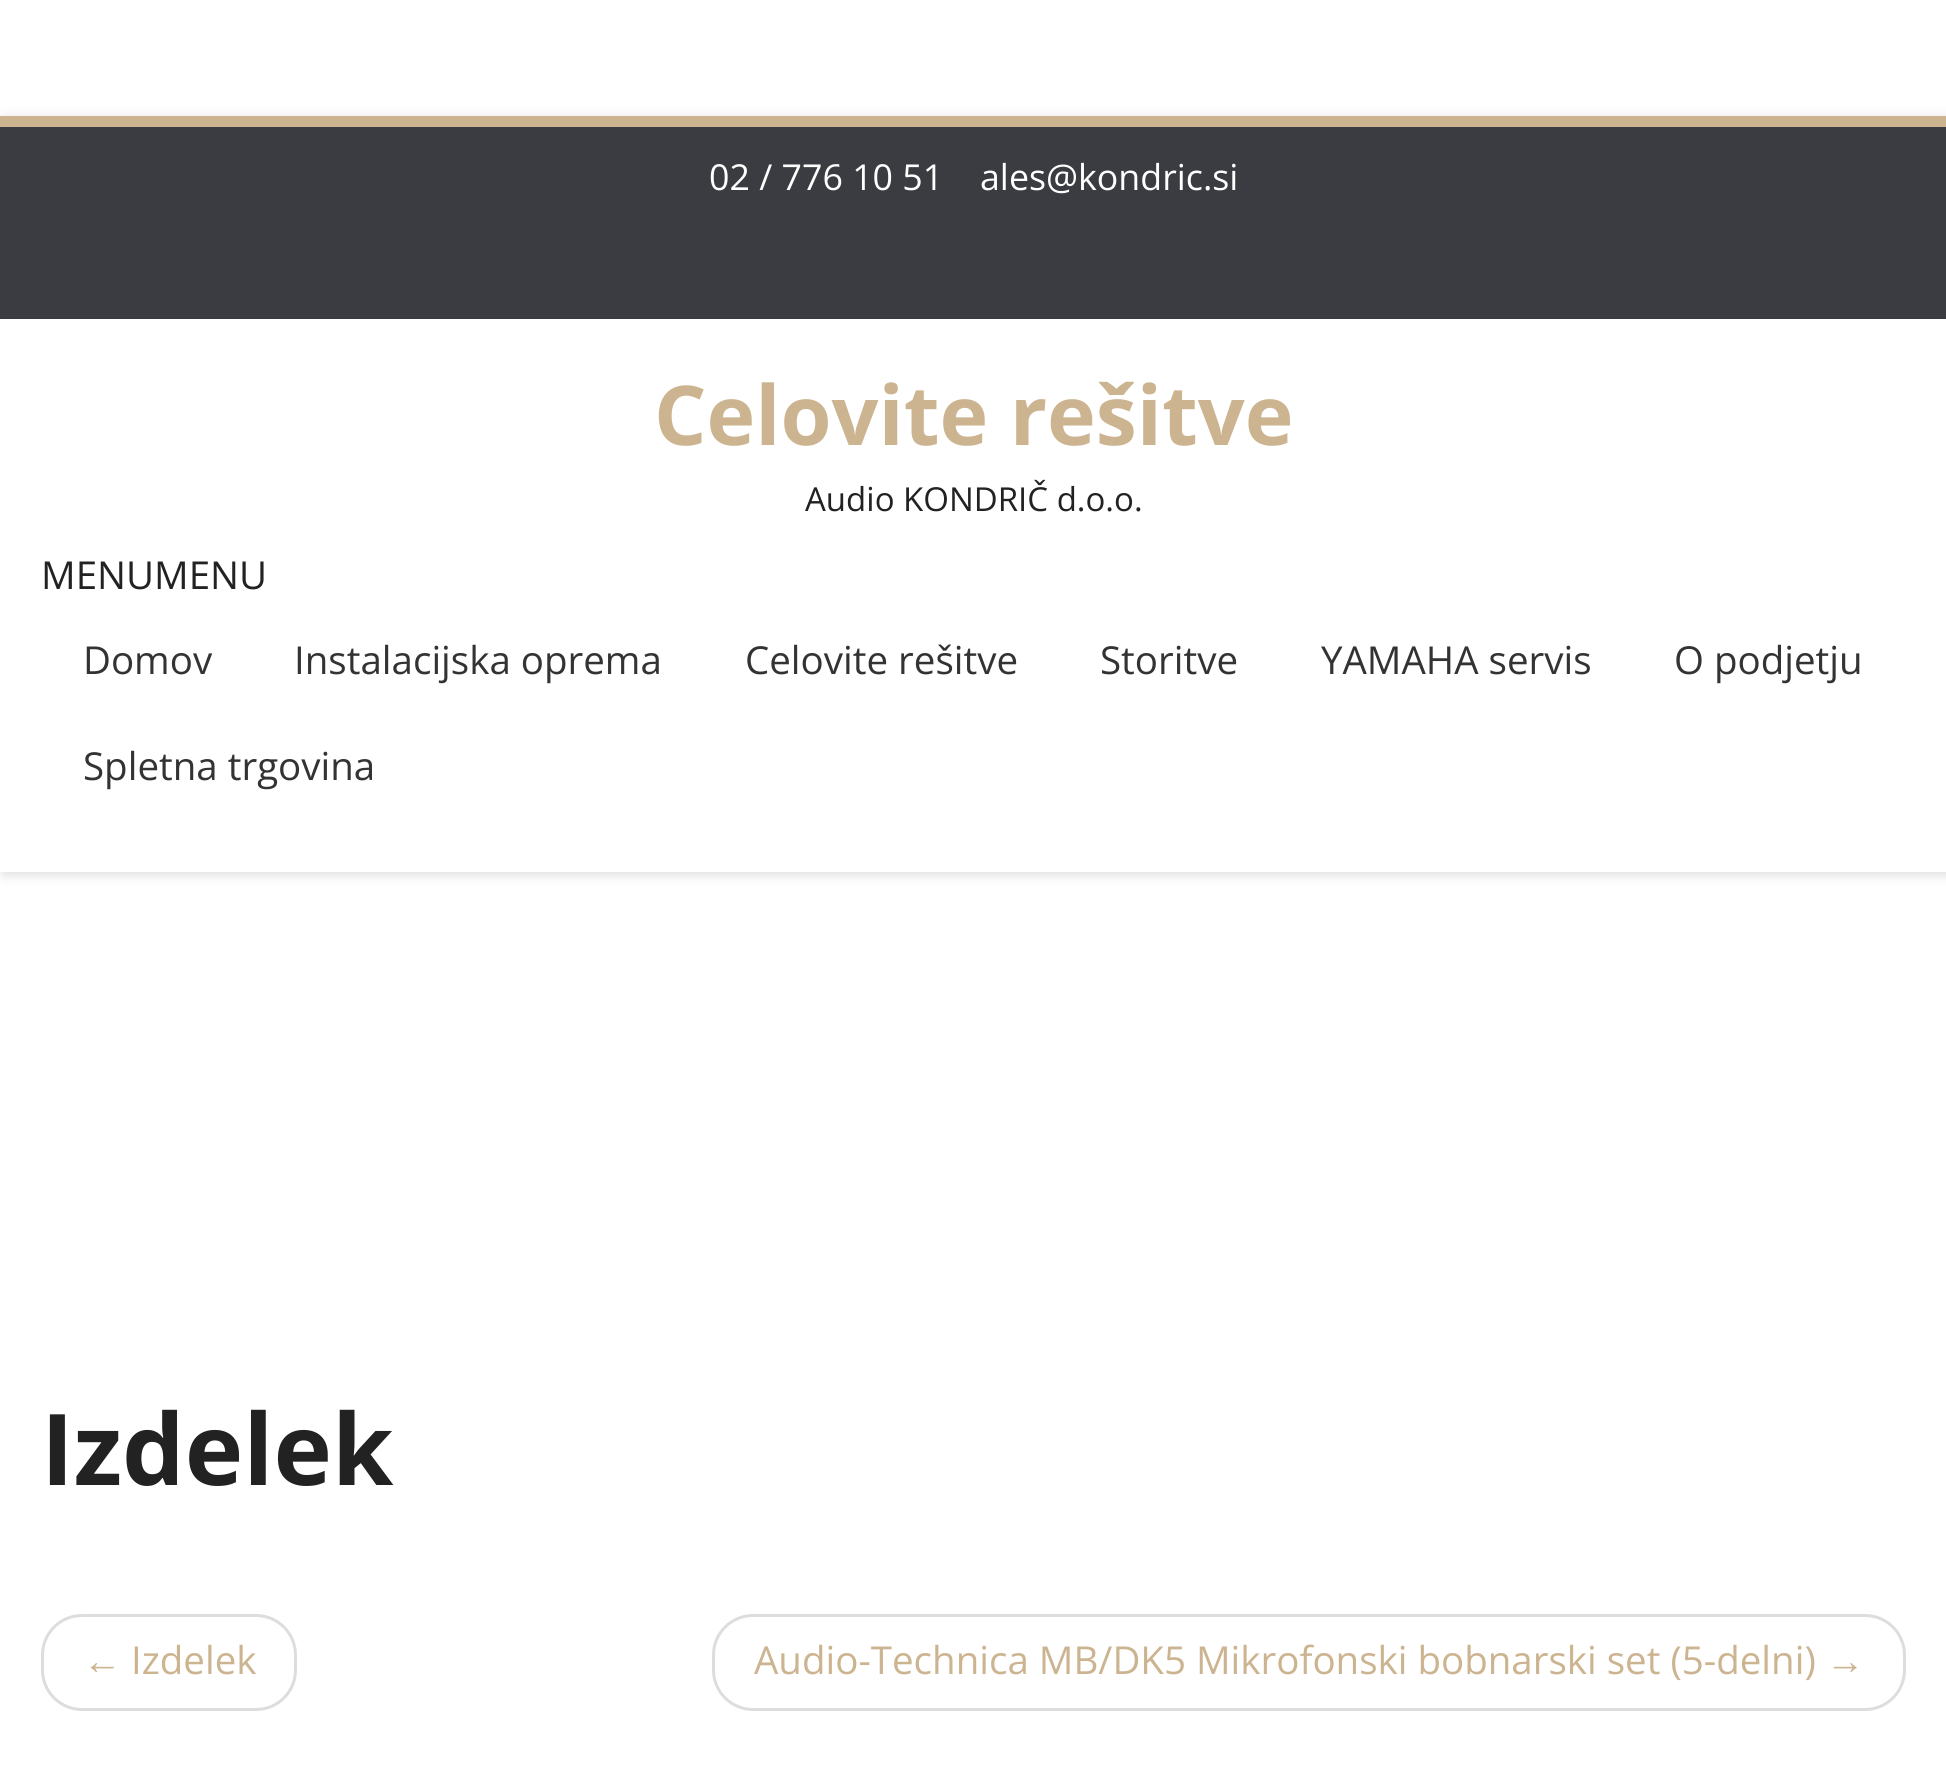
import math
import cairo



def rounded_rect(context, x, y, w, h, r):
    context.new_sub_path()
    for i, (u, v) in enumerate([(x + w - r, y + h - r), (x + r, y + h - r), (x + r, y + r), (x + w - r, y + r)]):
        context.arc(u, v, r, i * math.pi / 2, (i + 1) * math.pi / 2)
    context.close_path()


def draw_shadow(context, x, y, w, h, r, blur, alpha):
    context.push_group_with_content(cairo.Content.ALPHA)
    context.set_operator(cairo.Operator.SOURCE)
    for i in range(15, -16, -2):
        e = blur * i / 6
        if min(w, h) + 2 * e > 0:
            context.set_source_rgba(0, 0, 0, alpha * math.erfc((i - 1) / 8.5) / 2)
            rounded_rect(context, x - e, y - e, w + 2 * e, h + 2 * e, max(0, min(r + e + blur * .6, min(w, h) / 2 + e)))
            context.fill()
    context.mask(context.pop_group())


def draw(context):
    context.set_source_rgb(1, 1, 1)
    context.paint()
    context.set_source_rgb(221 / 255, 221 / 255, 221 / 255)
    draw_shadow(context, 3, 118, 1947, 757, 0, 5.5, 1)
    context.set_source_rgb(58 / 255, 60 / 255, 65 / 255)
    context.rectangle(0, 127, 1946, 192)
    context.fill()
    context.set_source_rgb(204 / 255, 180 / 255, 145 / 255)
    context.rectangle(0, 116, 1946, 11)
    context.fill()
    context.set_source_rgb(1, 1, 1)
    context.rectangle(0, 319, 1946, 553)
    context.fill()
    rounded_rect(context, 42.5, 1615.5, 253, 94, 39.5)
    context.set_source_rgb(221 / 255, 221 / 255, 221 / 255)
    context.set_line_width(3)
    context.stroke()
    rounded_rect(context, 713.5, 1615.5, 1191, 94, 39.5)
    context.stroke()
    context.select_font_face("Open Sans")
    context.set_font_size(35.75)
    context.set_source_rgb(1, 1, 1)
    context.move_to(709, 190)
    context.show_text("02 / 776 10 51")
    context.move_to(980, 190)
    context.show_text("ales@kondric.si")
    context.select_font_face("Open Sans", cairo.FontSlant.NORMAL, cairo.FontWeight.BOLD)
    context.set_font_size(82.5)
    context.set_source_rgb(204 / 255, 180 / 255, 145 / 255)
    context.move_to(654, 445)
    context.show_text("Celovite rešitve")
    context.select_font_face("Open Sans")
    context.set_font_size(33)
    context.set_source_rgb(34 / 255, 34 / 255, 34 / 255)
    context.move_to(805, 511)
    context.show_text("Audio KONDRIČ d.o.o.")
    context.set_font_size(38.5)
    context.move_to(41, 589)
    context.show_text("MENUMENU")
    context.set_source_rgb(51 / 255, 51 / 255, 51 / 255)
    context.move_to(83, 674)
    context.show_text("Domov")
    context.move_to(294, 674)
    context.show_text("Instalacijska oprema")
    context.move_to(745, 674)
    context.show_text("Celovite rešitve")
    context.move_to(1100, 674)
    context.show_text("Storitve")
    context.move_to(1321, 674)
    context.show_text("YAMAHA servis")
    context.move_to(1674, 674)
    context.show_text("O podjetju")
    context.move_to(83, 780)
    context.show_text("Spletna trgovina")
    context.select_font_face("Open Sans", cairo.FontSlant.NORMAL, cairo.FontWeight.BOLD)
    context.set_font_size(99)
    context.set_source_rgb(34 / 255, 34 / 255, 34 / 255)
    context.move_to(41, 1485)
    context.show_text("Izdelek")
    context.select_font_face("Liberation Sans")
    context.set_font_size(38.5)
    context.set_source_rgb(204 / 255, 180 / 255, 145 / 255)
    context.move_to(83, 1674)
    context.show_text("←")
    context.select_font_face("Open Sans")
    context.move_to(131, 1674)
    context.show_text("Izdelek")
    context.move_to(754, 1674)
    context.show_text("Audio-Technica MB/DK5 Mikrofonski bobnarski set (5-delni)")
    context.select_font_face("Liberation Sans")
    context.move_to(1826, 1674)
    context.show_text("→")


surface = cairo.ImageSurface(cairo.Format.RGB24, 1946, 1770)
context = cairo.Context(surface)
options = cairo.FontOptions()
options.set_hint_metrics(cairo.HintMetrics.OFF)
options.set_hint_style(cairo.HintStyle.NONE)
context.set_font_options(options)
context.set_miter_limit(4)
draw(context)
surface.write_to_png("out.png")
